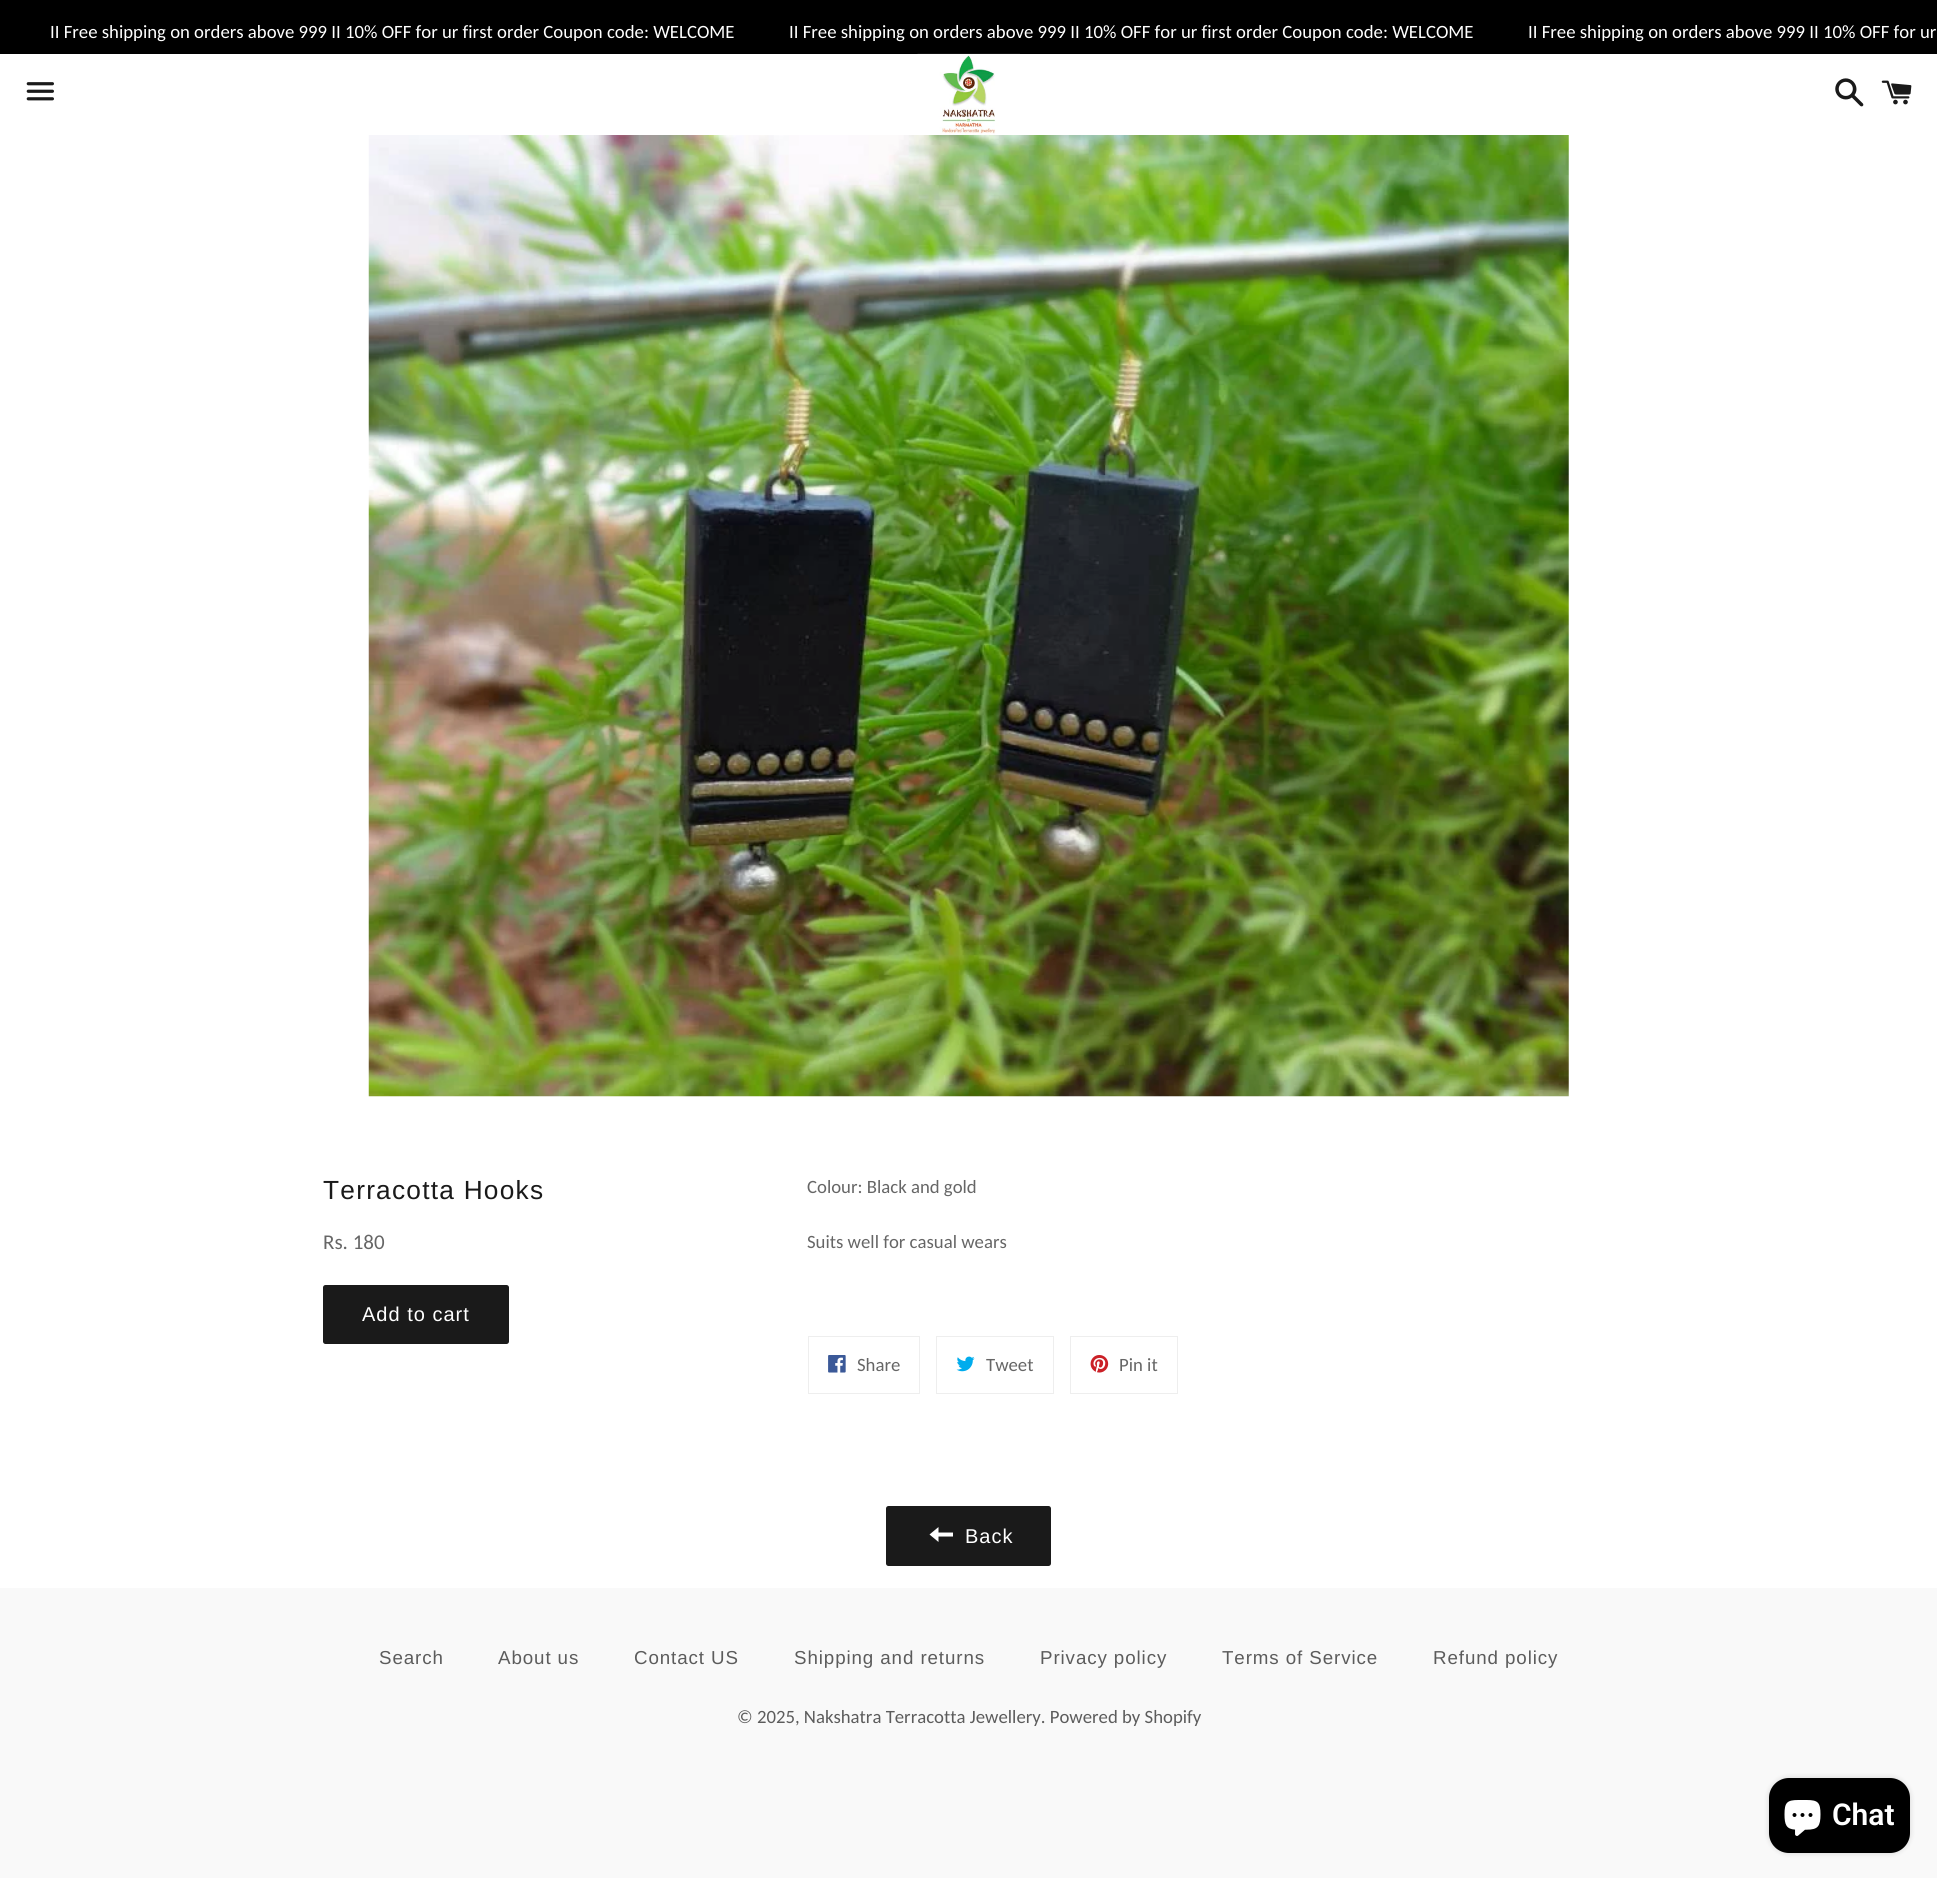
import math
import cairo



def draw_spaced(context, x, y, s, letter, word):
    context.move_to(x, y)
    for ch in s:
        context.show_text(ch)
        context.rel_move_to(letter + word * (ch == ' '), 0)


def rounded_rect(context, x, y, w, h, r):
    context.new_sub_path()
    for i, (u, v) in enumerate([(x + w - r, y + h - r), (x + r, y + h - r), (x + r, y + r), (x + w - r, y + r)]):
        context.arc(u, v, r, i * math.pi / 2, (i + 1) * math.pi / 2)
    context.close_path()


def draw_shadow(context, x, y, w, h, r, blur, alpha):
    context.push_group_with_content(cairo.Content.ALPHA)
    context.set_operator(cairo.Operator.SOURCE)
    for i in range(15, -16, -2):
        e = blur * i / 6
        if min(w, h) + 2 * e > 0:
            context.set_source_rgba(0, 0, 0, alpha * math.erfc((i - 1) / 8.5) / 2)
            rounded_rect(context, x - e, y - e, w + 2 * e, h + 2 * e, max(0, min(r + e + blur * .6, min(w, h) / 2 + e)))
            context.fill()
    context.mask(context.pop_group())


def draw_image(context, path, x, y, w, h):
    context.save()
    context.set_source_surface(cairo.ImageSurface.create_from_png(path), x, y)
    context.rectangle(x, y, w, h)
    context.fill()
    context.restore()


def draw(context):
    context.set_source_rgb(249 / 255, 249 / 255, 249 / 255)
    context.paint()
    context.set_source_rgb(1, 1, 1)
    context.rectangle(0, 54, 1937, 1534)
    context.fill()
    context.set_source_rgb(0, 0, 0)
    context.rectangle(0, 0, 1937, 54)
    context.fill()
    draw_image(context, "images/1.png", 26, 82, 28, 19)
    draw_image(context, "images/2.png", 917, 53, 103, 82)
    draw_image(context, "images/3.png", 1835, 78, 29, 29)
    draw_image(context, "images/4.png", 1881, 80, 31, 25)
    draw_image(context, "images/5.png", 368, 135, 1201, 962)
    context.set_source_rgb(26 / 255, 26 / 255, 26 / 255)
    rounded_rect(context, 323, 1285, 186, 59, 2.5)
    context.fill()
    context.rectangle(808.5, 1336.5, 111, 57)
    context.set_source_rgb(238 / 255, 238 / 255, 238 / 255)
    context.set_line_width(1)
    context.stroke()
    draw_image(context, "images/6.png", 828, 1355, 18, 18)
    context.rectangle(936.5, 1336.5, 117, 57)
    context.stroke()
    draw_image(context, "images/7.png", 956, 1356, 19, 16)
    context.rectangle(1070.5, 1336.5, 107, 57)
    context.stroke()
    draw_image(context, "images/8.png", 1090, 1355, 19, 18)
    context.set_source_rgb(26 / 255, 26 / 255, 26 / 255)
    rounded_rect(context, 886, 1506, 165, 60, 2.5)
    context.fill()
    context.set_source_rgb(1, 1, 1)
    context.new_path()
    context.move_to(938.5, 1532.5)
    context.line_to(938.5, 1527)
    context.line_to(929.5, 1534.5)
    context.line_to(938.5, 1542)
    context.line_to(938.5, 1536.5)
    context.line_to(953, 1536.5)
    context.line_to(953, 1532.5)
    context.close_path()
    context.fill()
    context.set_source_rgb(0, 0, 0)
    draw_shadow(context, 1769, 1778, 141, 75, 20, 3, 0.15)
    context.set_source_rgb(0, 0, 0)
    rounded_rect(context, 1769, 1778, 141, 75, 20)
    context.fill()
    draw_image(context, "images/9.png", 1784, 1800, 37, 36)
    context.select_font_face("Carlito")
    context.set_font_size(18.75)
    context.set_source_rgb(1, 1, 1)
    context.move_to(50, 38)
    context.show_text("II Free shipping on orders above 999 II 10% OFF for ur first order Coupon code: WELCOME")
    context.move_to(789, 38)
    context.show_text("II Free shipping on orders above 999 II 10% OFF for ur first order Coupon code: WELCOME")
    context.move_to(1528, 38)
    context.show_text("II Free shipping on orders above 999 II 10% OFF for ur")
    context.select_font_face("Liberation Sans")
    context.set_font_size(26.25)
    context.set_source_rgb(26 / 255, 26 / 255, 26 / 255)
    draw_spaced(context, 323, 1199, "Terracotta Hooks", 1.25, 0)
    context.select_font_face("Carlito")
    context.set_font_size(21)
    context.set_source_rgb(102 / 255, 102 / 255, 102 / 255)
    context.move_to(323, 1249)
    context.show_text("Rs. 180")
    context.select_font_face("Liberation Sans")
    context.set_font_size(20)
    context.set_source_rgb(1, 1, 1)
    draw_spaced(context, 362, 1321, "Add to cart", 1, 0)
    context.select_font_face("Carlito")
    context.set_font_size(18.75)
    context.set_source_rgb(102 / 255, 102 / 255, 102 / 255)
    context.move_to(807, 1193)
    context.show_text("Colour: Black and gold")
    context.move_to(807, 1248)
    context.show_text("Suits well for casual wears")
    context.move_to(857, 1371)
    context.show_text("Share")
    context.move_to(986, 1371)
    context.show_text("Tweet")
    context.move_to(1119, 1371)
    context.show_text("Pin it")
    context.select_font_face("Liberation Sans")
    context.set_font_size(20)
    context.set_source_rgb(1, 1, 1)
    draw_spaced(context, 965, 1543, "Back", 1, 0)
    context.set_font_size(18.75)
    context.set_source_rgb(92 / 255, 92 / 255, 92 / 255)
    draw_spaced(context, 379, 1664, "Search", 0.9, 0)
    draw_spaced(context, 498, 1664, "About us", 0.9, 0)
    draw_spaced(context, 634, 1664, "Contact US", 0.9, 0)
    draw_spaced(context, 794, 1664, "Shipping and returns", 0.9, 0)
    draw_spaced(context, 1040, 1664, "Privacy policy", 0.9, 0)
    draw_spaced(context, 1222, 1664, "Terms of Service", 0.9, 0)
    draw_spaced(context, 1433, 1664, "Refund policy", 0.9, 0)
    context.select_font_face("Carlito")
    context.move_to(737, 1723)
    context.show_text("© 2025, Nakshatra Terracotta Jewellery. Powered by Shopify")
    context.select_font_face("Roboto SemiBold")
    context.set_font_size(30)
    context.set_source_rgb(1, 1, 1)
    context.move_to(1832, 1825)
    context.show_text("Chat")


surface = cairo.ImageSurface(cairo.Format.RGB24, 1937, 1878)
context = cairo.Context(surface)
options = cairo.FontOptions()
options.set_hint_metrics(cairo.HintMetrics.OFF)
options.set_hint_style(cairo.HintStyle.NONE)
context.set_font_options(options)
context.set_miter_limit(4)
draw(context)
surface.write_to_png("out.png")
